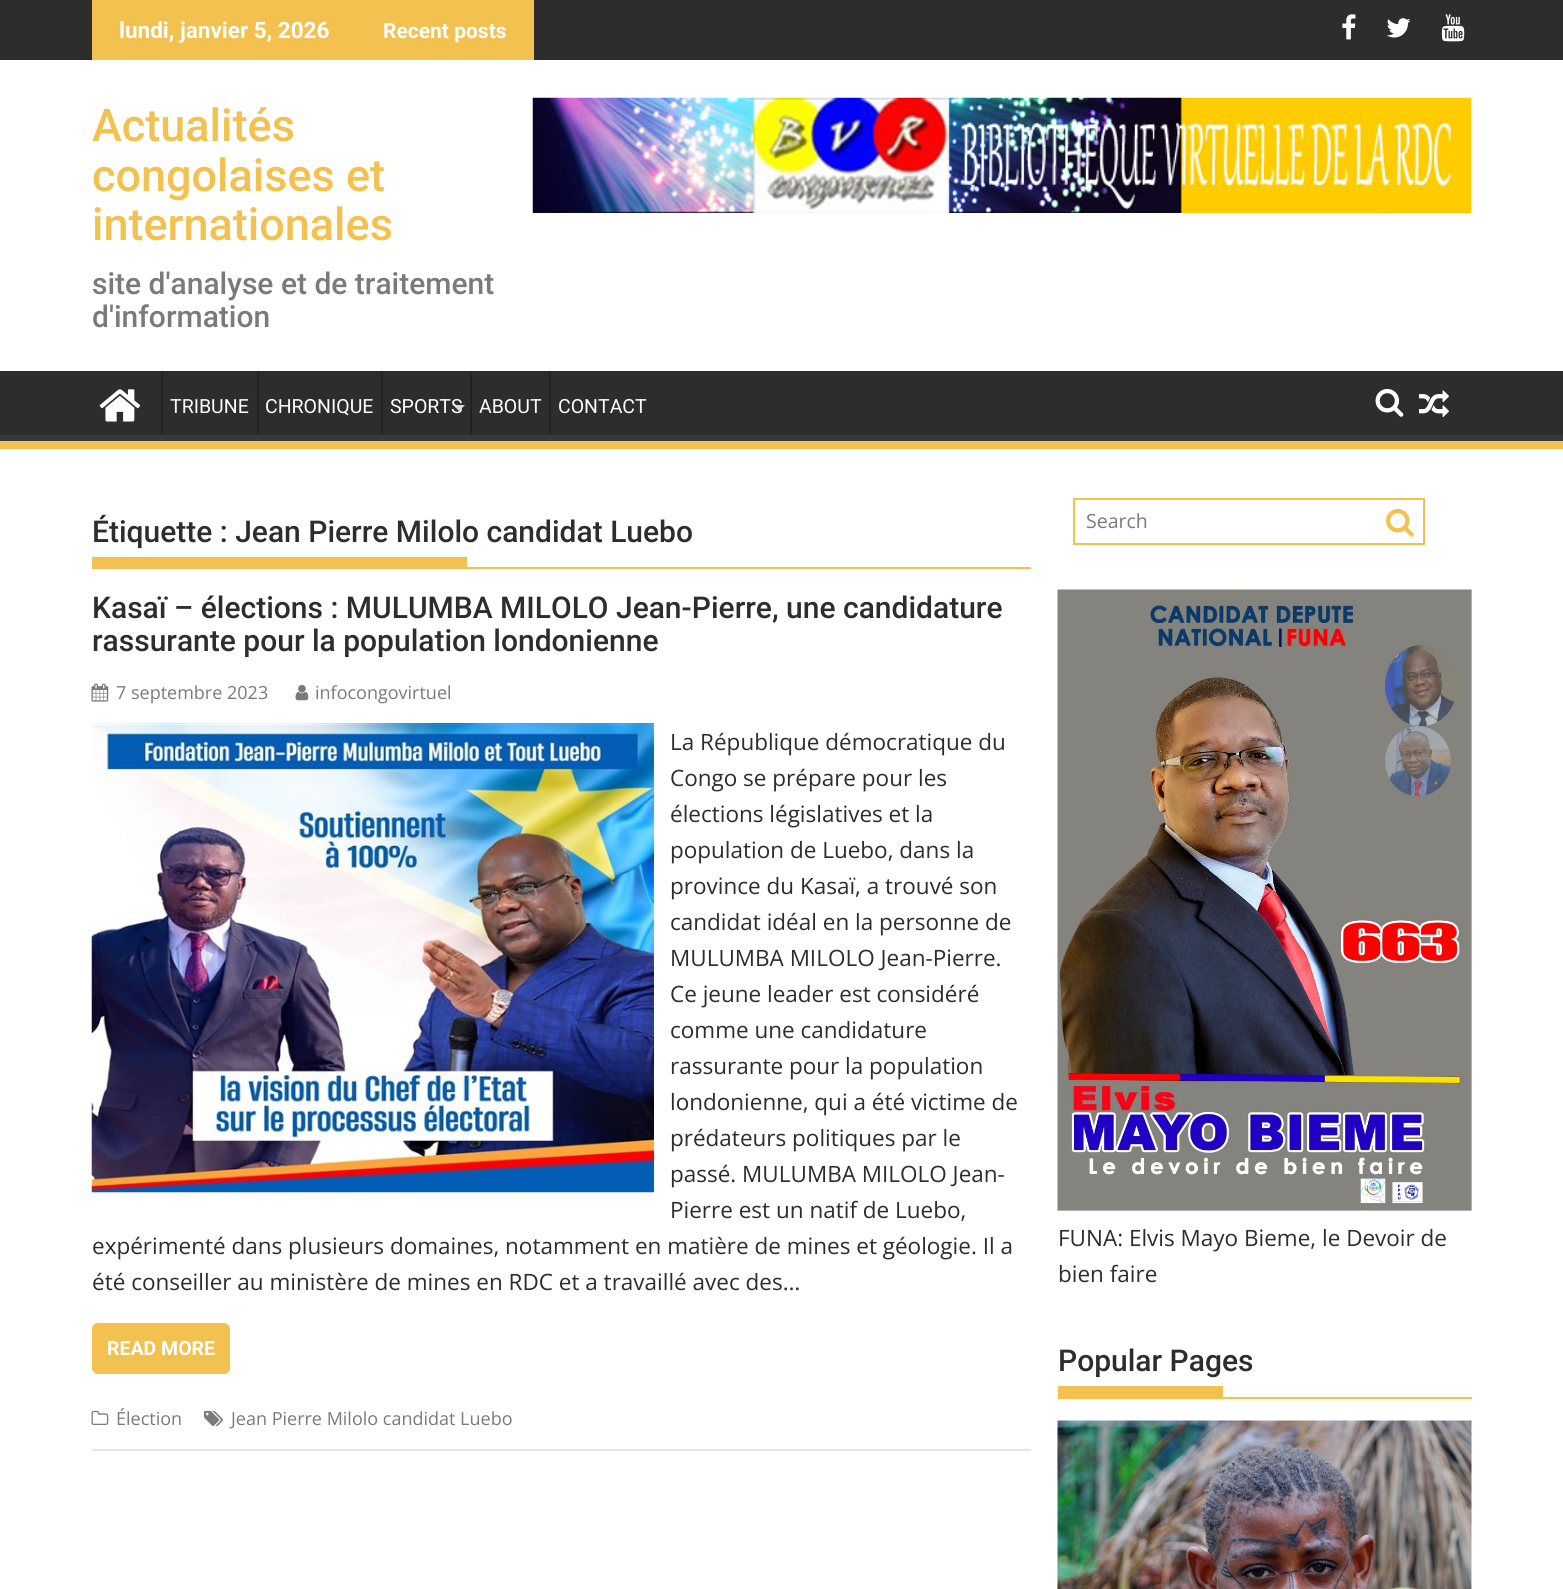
import math
import cairo



def rounded_rect(context, x, y, w, h, r):
    context.new_sub_path()
    for i, (u, v) in enumerate([(x + w - r, y + h - r), (x + r, y + h - r), (x + r, y + r), (x + w - r, y + r)]):
        context.arc(u, v, r, i * math.pi / 2, (i + 1) * math.pi / 2)
    context.close_path()


def draw_image(context, path, x, y, w, h):
    context.save()
    context.set_source_surface(cairo.ImageSurface.create_from_png(path), x, y)
    context.rectangle(x, y, w, h)
    context.fill()
    context.restore()


def draw(context):
    context.set_source_rgb(1, 1, 1)
    context.paint()
    context.set_source_rgb(45 / 255, 45 / 255, 45 / 255)
    context.rectangle(0, 0, 1563, 60)
    context.fill()
    context.set_source_rgb(242 / 255, 193 / 255, 79 / 255)
    context.rectangle(92, 0, 442, 60)
    context.fill()
    draw_image(context, "images/1.png", 1342, 14, 14, 26)
    draw_image(context, "images/2.png", 1386, 18, 25, 20)
    draw_image(context, "images/3.png", 1441, 14, 24, 28)
    draw_image(context, "images/4.png", 532, 97, 940, 116)
    context.set_source_rgb(45 / 255, 45 / 255, 45 / 255)
    context.rectangle(0, 371, 1563, 64)
    context.fill()
    context.save()
    context.rectangle(0, 371, 1563, 70)
    context.clip()
    context.set_source_rgb(57 / 255, 57 / 255, 57 / 255)
    context.set_fill_rule(cairo.FillRule.EVEN_ODD)
    context.new_path()
    context.move_to(-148, 222)
    context.line_to(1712, 222)
    context.line_to(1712, 590)
    context.line_to(-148, 590)
    context.close_path()
    context.move_to(-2, 362)
    context.line_to(1562, 362)
    context.curve_to(1562, 362, 1563, 362, 1563, 363)
    context.line_to(1563, 434)
    context.curve_to(1563, 434, 1562, 435, 1562, 435)
    context.line_to(-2, 435)
    context.curve_to(-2, 435, -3, 434, -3, 434)
    context.line_to(-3, 363)
    context.curve_to(-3, 362, -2, 362, -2, 362)
    context.close_path()
    context.fill()
    context.restore()
    context.set_source_rgb(242 / 255, 193 / 255, 79 / 255)
    context.rectangle(0, 441, 1563, 8)
    context.fill()
    draw_image(context, "images/5.png", 99, 389, 42, 33)
    context.set_source_rgb(34 / 255, 34 / 255, 34 / 255)
    context.rectangle(161, 371, 2, 63)
    context.fill()
    context.rectangle(257, 371, 2, 63)
    context.fill()
    context.rectangle(381, 371, 2, 63)
    context.fill()
    context.rectangle(470, 371, 2, 63)
    context.fill()
    context.rectangle(549, 371, 2, 63)
    context.fill()
    draw_image(context, "images/6.png", 1375, 388, 29, 29)
    draw_image(context, "images/7.png", 1419, 390, 30, 27)
    context.set_source_rgb(242 / 255, 193 / 255, 79 / 255)
    context.rectangle(92, 567, 939, 2)
    context.fill()
    context.rectangle(92, 557, 375, 10)
    context.fill()
    context.set_source_rgb(229 / 255, 229 / 255, 229 / 255)
    context.rectangle(92, 1449, 939, 2)
    context.fill()
    draw_image(context, "images/8.png", 91, 683, 18, 19)
    draw_image(context, "images/9.png", 295, 684, 14, 17)
    draw_image(context, "images/10.png", 91, 723, 563, 470)
    context.set_source_rgb(242 / 255, 193 / 255, 79 / 255)
    rounded_rect(context, 92, 1323, 138, 51, 6)
    context.fill()
    draw_image(context, "images/11.png", 91, 1410, 18, 15)
    draw_image(context, "images/12.png", 204, 1410, 19, 16)
    context.rectangle(1074, 499, 350, 45)
    context.stroke()
    draw_image(context, "images/13.png", 1386, 508, 28, 29)
    draw_image(context, "images/14.png", 1057, 589, 415, 622)
    context.rectangle(1058, 1397, 414, 2)
    context.fill()
    context.rectangle(1058, 1386, 165, 11)
    context.fill()
    draw_image(context, "images/15.png", 1057, 1420, 415, 169)
    context.select_font_face("Roboto", cairo.FontSlant.NORMAL, cairo.FontWeight.BOLD)
    context.set_font_size(22.5)
    context.set_source_rgb(1, 1, 1)
    context.move_to(119, 38)
    context.show_text("lundi, janvier 5, 2026")
    context.set_font_size(21)
    context.move_to(383, 38)
    context.show_text("Recent posts")
    context.select_font_face("Roboto Medium")
    context.set_font_size(45)
    context.set_source_rgb(242 / 255, 193 / 255, 79 / 255)
    context.move_to(92, 141)
    context.show_text("Actualités")
    context.move_to(92, 191)
    context.show_text("congolaises et")
    context.move_to(92, 240)
    context.show_text("internationales")
    context.set_font_size(30)
    context.set_source_rgb(122 / 255, 122 / 255, 122 / 255)
    context.move_to(92, 294)
    context.show_text("site d'analyse et de traitement")
    context.move_to(92, 327)
    context.show_text("d'information")
    context.select_font_face("Roboto")
    context.set_font_size(19.5)
    context.set_source_rgb(1, 1, 1)
    context.move_to(170, 413)
    context.show_text("TRIBUNE")
    context.move_to(265, 413)
    context.show_text("CHRONIQUE")
    context.move_to(390, 413)
    context.show_text("SPORTS")
    context.set_source_rgb(221 / 255, 221 / 255, 221 / 255)
    context.new_path()
    context.move_to(453, 405)
    context.line_to(465, 405)
    context.line_to(459, 411)
    context.close_path()
    context.fill()
    context.set_source_rgb(1, 1, 1)
    context.move_to(479, 413)
    context.show_text("ABOUT")
    context.move_to(558, 413)
    context.show_text("CONTACT")
    context.select_font_face("Roboto Medium")
    context.set_font_size(30)
    context.set_source_rgb(45 / 255, 45 / 255, 45 / 255)
    context.move_to(92, 542)
    context.show_text("Étiquette : Jean Pierre Milolo candidat Luebo")
    context.move_to(92, 618)
    context.show_text("Kasaï – élections : MULUMBA MILOLO Jean-Pierre, une candidature")
    context.move_to(92, 651)
    context.show_text("rassurante pour la population londonienne")
    context.select_font_face("Open Sans")
    context.set_font_size(18)
    context.set_source_rgb(122 / 255, 122 / 255, 122 / 255)
    context.move_to(116, 699)
    context.show_text("7 septembre 2023")
    context.move_to(315, 699)
    context.show_text("infocongovirtuel")
    context.set_font_size(22.5)
    context.set_source_rgb(45 / 255, 45 / 255, 45 / 255)
    context.move_to(670, 750)
    context.show_text("La République démocratique du")
    context.move_to(670, 786)
    context.show_text("Congo se prépare pour les")
    context.move_to(670, 822)
    context.show_text("élections législatives et la")
    context.move_to(670, 858)
    context.show_text("population de Luebo, dans la")
    context.move_to(670, 894)
    context.show_text("province du Kasaï, a trouvé son")
    context.move_to(670, 930)
    context.show_text("candidat idéal en la personne de")
    context.move_to(670, 966)
    context.show_text("MULUMBA MILOLO Jean-Pierre.")
    context.move_to(670, 1002)
    context.show_text("Ce jeune leader est considéré")
    context.move_to(670, 1038)
    context.show_text("comme une candidature")
    context.move_to(670, 1074)
    context.show_text("rassurante pour la population")
    context.move_to(670, 1110)
    context.show_text("londonienne, qui a été victime de")
    context.move_to(670, 1146)
    context.show_text("prédateurs politiques par le")
    context.move_to(670, 1182)
    context.show_text("passé. MULUMBA MILOLO Jean-")
    context.move_to(670, 1218)
    context.show_text("Pierre est un natif de Luebo,")
    context.move_to(92, 1254)
    context.show_text("expérimenté dans plusieurs domaines, notamment en matière de mines et géologie. Il a")
    context.move_to(92, 1290)
    context.show_text("été conseiller au ministère de mines en RDC et a travaillé avec des…")
    context.select_font_face("Roboto", cairo.FontSlant.NORMAL, cairo.FontWeight.BOLD)
    context.set_font_size(19.5)
    context.set_source_rgb(1, 1, 1)
    context.move_to(107, 1355)
    context.show_text("READ MORE")
    context.select_font_face("Open Sans")
    context.set_font_size(18)
    context.set_source_rgb(122 / 255, 122 / 255, 122 / 255)
    context.move_to(116, 1425)
    context.show_text("Élection")
    context.move_to(231, 1425)
    context.show_text("Jean Pierre Milolo candidat Luebo")
    context.set_font_size(19.5)
    context.move_to(1086, 528)
    context.show_text("Search")
    context.set_font_size(22.5)
    context.set_source_rgb(45 / 255, 45 / 255, 45 / 255)
    context.move_to(1058, 1246)
    context.show_text("FUNA: Elvis Mayo Bieme, le Devoir de")
    context.move_to(1058, 1282)
    context.show_text("bien faire")
    context.select_font_face("Roboto Medium")
    context.set_font_size(30)
    context.move_to(1058, 1371)
    context.show_text("Popular Pages")


surface = cairo.ImageSurface(cairo.Format.RGB24, 1563, 1589)
context = cairo.Context(surface)
options = cairo.FontOptions()
options.set_hint_metrics(cairo.HintMetrics.OFF)
options.set_hint_style(cairo.HintStyle.NONE)
context.set_font_options(options)
context.set_miter_limit(4)
draw(context)
surface.write_to_png("out.png")
